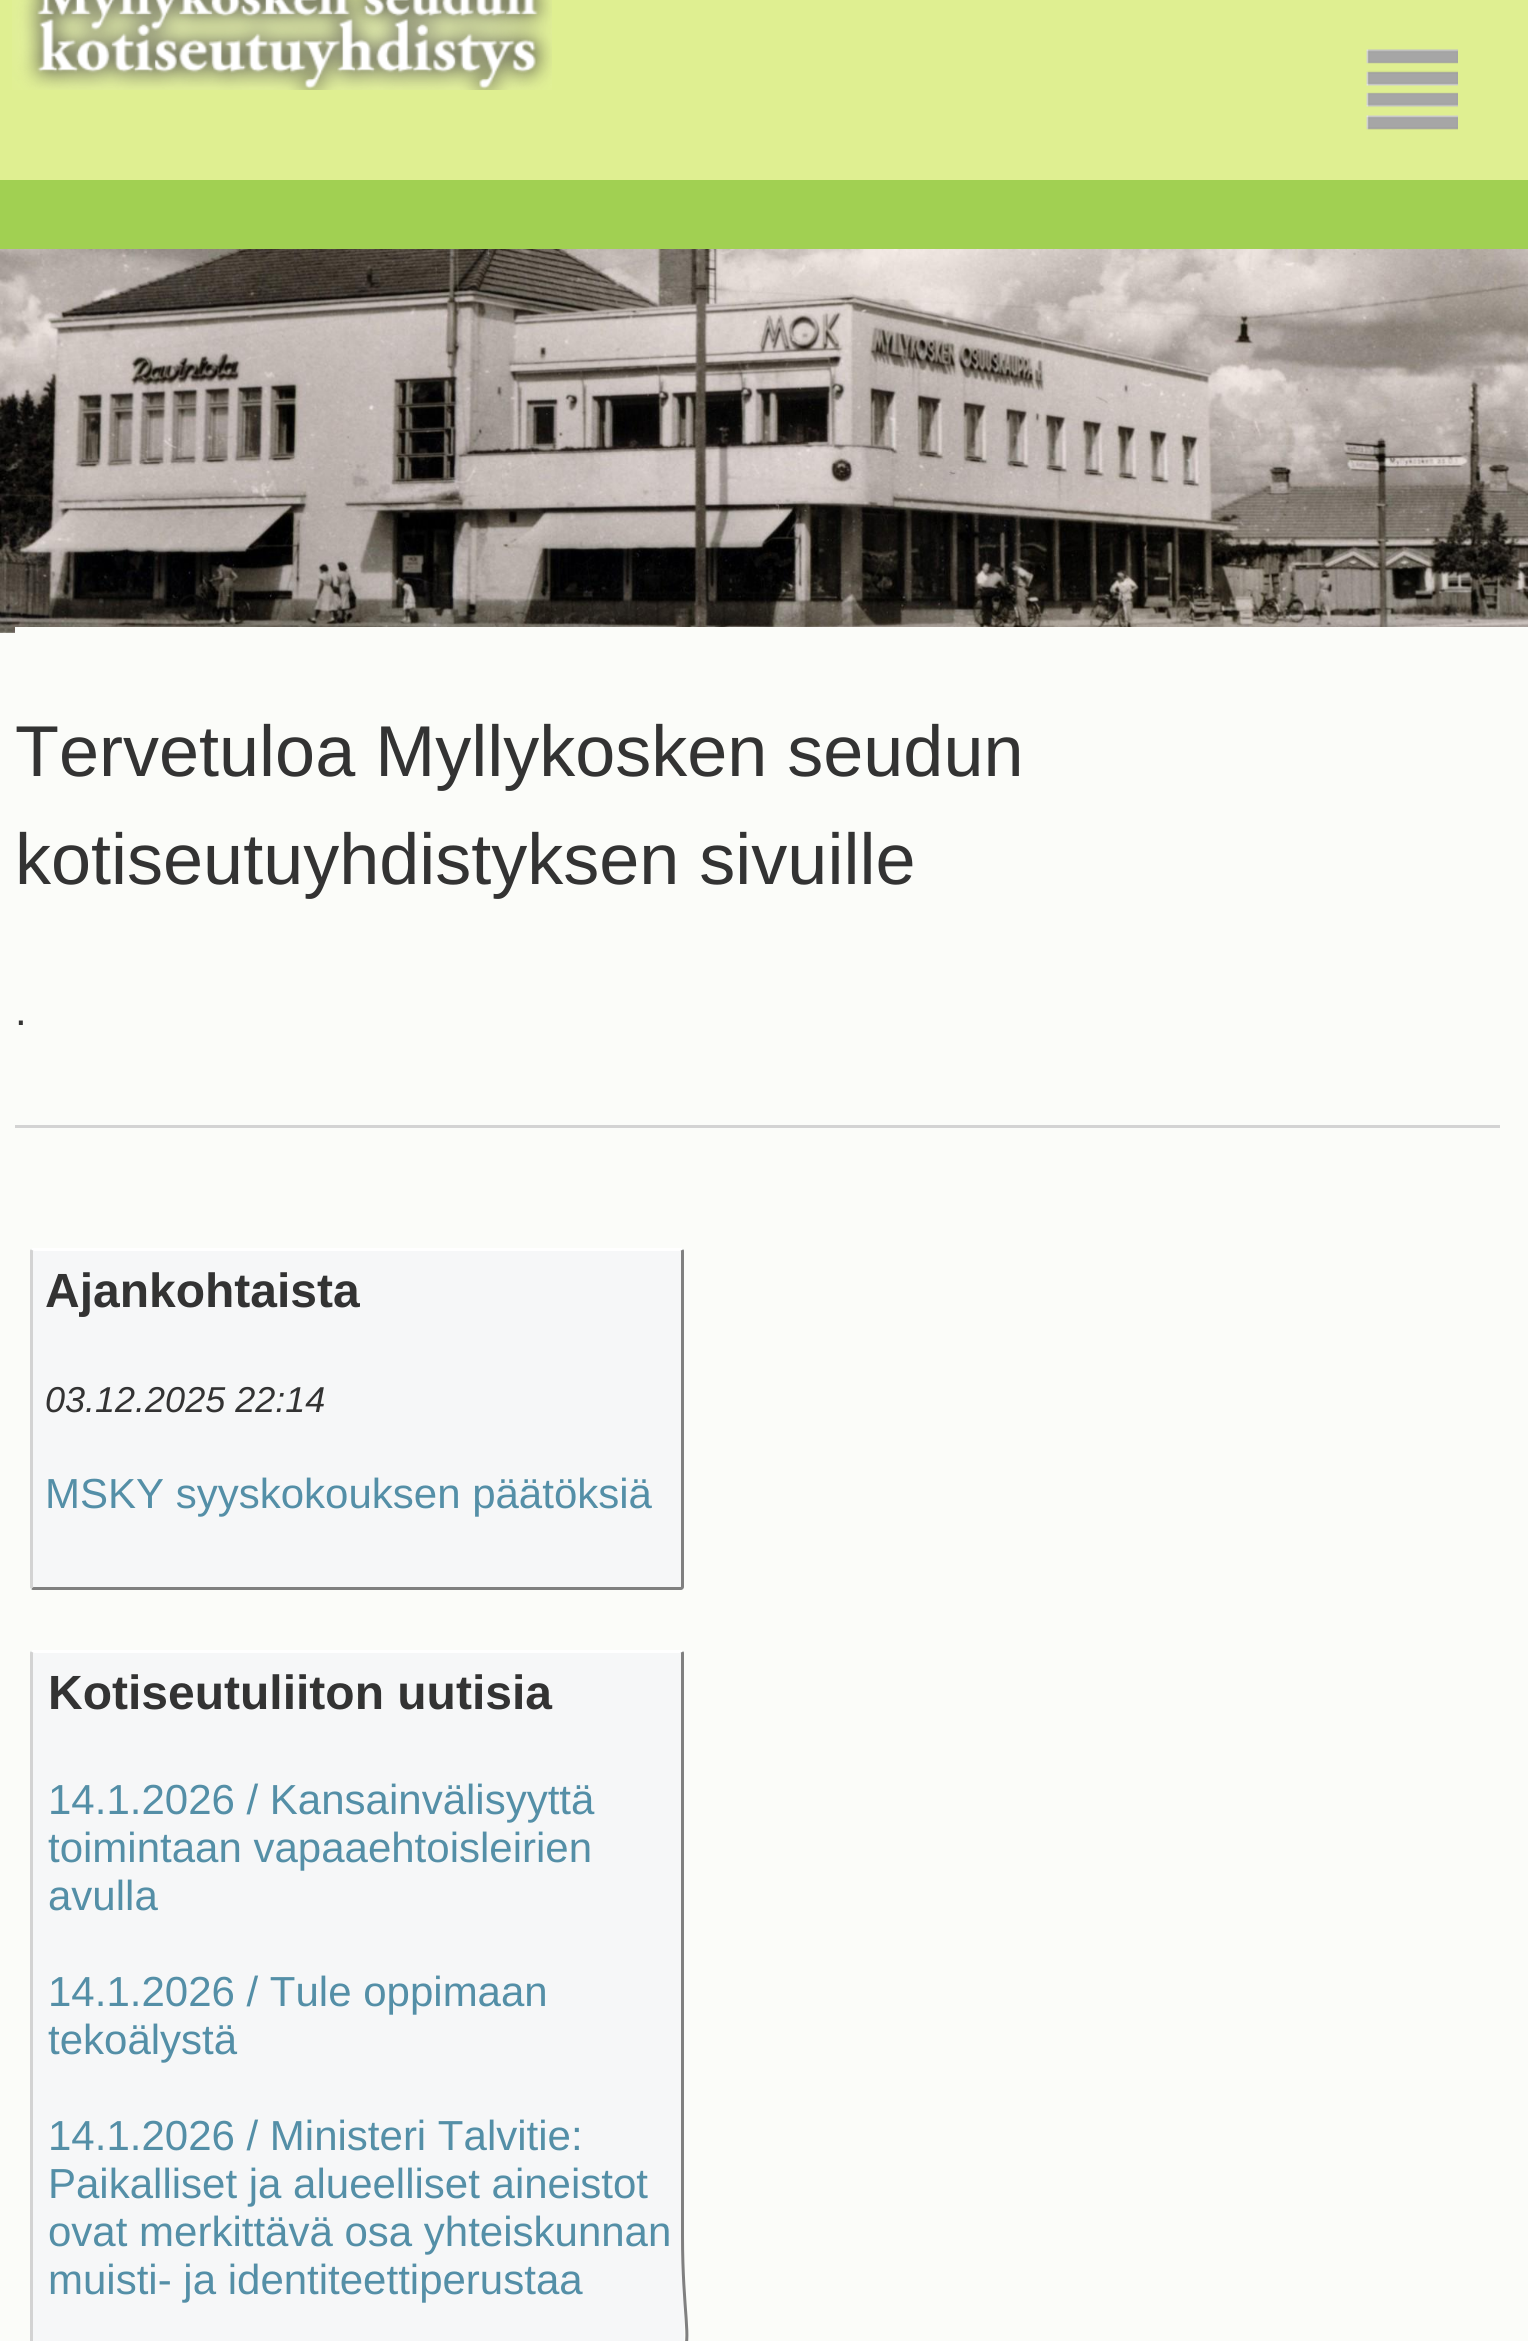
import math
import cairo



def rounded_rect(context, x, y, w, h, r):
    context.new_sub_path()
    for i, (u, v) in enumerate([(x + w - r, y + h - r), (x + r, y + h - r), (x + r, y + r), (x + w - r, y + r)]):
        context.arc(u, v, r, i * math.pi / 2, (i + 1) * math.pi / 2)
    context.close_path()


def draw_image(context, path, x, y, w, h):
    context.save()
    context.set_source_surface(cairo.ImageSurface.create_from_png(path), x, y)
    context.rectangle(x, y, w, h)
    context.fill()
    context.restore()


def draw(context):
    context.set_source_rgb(251 / 255, 252 / 255, 249 / 255)
    context.paint()
    context.set_source_rgb(223 / 255, 239 / 255, 145 / 255)
    context.rectangle(0, 0, 1528, 180)
    context.fill()
    draw_image(context, "images/1.png", 12, 0, 540, 90)
    context.set_source_rgb(161 / 255, 208 / 255, 82 / 255)
    context.rectangle(0, 180, 1528, 69)
    context.fill()
    draw_image(context, "images/2.png", 1366, 49, 92, 81)
    draw_image(context, "images/3.png", 0, 249, 1528, 384)
    context.set_source_rgb(251 / 255, 252 / 255, 249 / 255)
    context.rectangle(15, 627, 1513, 6)
    context.fill()
    context.set_source_rgb(211 / 255, 211 / 255, 211 / 255)
    context.rectangle(15, 1125, 1485, 3)
    context.fill()
    context.set_source_rgb(246 / 255, 247 / 255, 248 / 255)
    rounded_rect(context, 30, 1248, 654, 342, 3)
    context.fill()
    context.new_path()
    context.move_to(32, 1250)
    context.line_to(33, 1249.5)
    context.line_to(681, 1249.5)
    context.line_to(682, 1250)
    context.set_source_rgb(1, 1, 1)
    context.set_line_width(3)
    context.stroke()
    context.new_path()
    context.move_to(682, 1250)
    context.line_to(682.5, 1251)
    context.line_to(682.5, 1587)
    context.line_to(682, 1588)
    context.line_to(681, 1588.5)
    context.line_to(33, 1588.5)
    context.line_to(32, 1588)
    context.set_source_rgb(128 / 255, 128 / 255, 128 / 255)
    context.stroke()
    context.new_path()
    context.move_to(32, 1588)
    context.line_to(31.5, 1587)
    context.line_to(31.5, 1251)
    context.line_to(32, 1250)
    context.set_source_rgb(211 / 255, 211 / 255, 211 / 255)
    context.stroke()
    context.set_source_rgb(246 / 255, 247 / 255, 248 / 255)
    rounded_rect(context, 30, 1650, 654, 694, 3)
    context.fill()
    context.new_path()
    context.move_to(32, 1652)
    context.line_to(33, 1651.5)
    context.line_to(681, 1651.5)
    context.line_to(682, 1652)
    context.set_source_rgb(1, 1, 1)
    context.stroke()
    context.new_path()
    context.move_to(682, 1652)
    context.line_to(682.5, 1653)
    context.line_to(682.5, 2235.5)
    context.curve_to(682.5, 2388.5, 720.5, 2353.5, 573, 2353.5)
    context.line_to(33, 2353.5)
    context.line_to(32, 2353)
    context.set_source_rgb(128 / 255, 128 / 255, 128 / 255)
    context.stroke()
    context.new_path()
    context.move_to(32, 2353)
    context.line_to(31.5, 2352)
    context.line_to(31.5, 1653)
    context.line_to(32, 1652)
    context.set_source_rgb(211 / 255, 211 / 255, 211 / 255)
    context.stroke()
    context.select_font_face("Liberation Sans")
    context.set_font_size(72)
    context.set_source_rgb(51 / 255, 51 / 255, 51 / 255)
    context.move_to(15, 776)
    context.show_text("Tervetuloa Myllykosken seudun")
    context.move_to(15, 884)
    context.show_text("kotiseutuyhdistyksen sivuille")
    context.set_font_size(42)
    context.move_to(15, 1025)
    context.show_text(".")
    context.select_font_face("Liberation Sans", cairo.FontSlant.NORMAL, cairo.FontWeight.BOLD)
    context.set_font_size(48)
    context.move_to(45, 1307)
    context.show_text("Ajankohtaista")
    context.select_font_face("Liberation Sans", cairo.FontSlant.ITALIC)
    context.set_font_size(36)
    context.move_to(45, 1412)
    context.show_text("03.12.2025 22:14")
    context.select_font_face("Liberation Sans")
    context.set_font_size(42)
    context.set_source_rgb(84 / 255, 143 / 255, 167 / 255)
    context.move_to(45, 1508)
    context.show_text("MSKY syyskokouksen päätöksiä")
    context.select_font_face("Liberation Sans", cairo.FontSlant.NORMAL, cairo.FontWeight.BOLD)
    context.set_font_size(48)
    context.set_source_rgb(51 / 255, 51 / 255, 51 / 255)
    context.move_to(48, 1709)
    context.show_text("Kotiseutuliiton uutisia")
    context.select_font_face("Liberation Sans")
    context.set_font_size(42)
    context.set_source_rgb(84 / 255, 143 / 255, 167 / 255)
    context.move_to(48, 1814)
    context.show_text("14.1.2026 / Kansainvälisyyttä")
    context.move_to(48, 1862)
    context.show_text("toimintaan vapaaehtoisleirien")
    context.move_to(48, 1910)
    context.show_text("avulla")
    context.move_to(48, 2006)
    context.show_text("14.1.2026 / Tule oppimaan")
    context.move_to(48, 2054)
    context.show_text("tekoälystä")
    context.move_to(48, 2150)
    context.show_text("14.1.2026 / Ministeri Talvitie:")
    context.move_to(48, 2198)
    context.show_text("Paikalliset ja alueelliset aineistot")
    context.move_to(48, 2246)
    context.show_text("ovat merkittävä osa yhteiskunnan")
    context.move_to(48, 2294)
    context.show_text("muisti- ja identiteettiperustaa")


surface = cairo.ImageSurface(cairo.Format.RGB24, 1528, 2341)
context = cairo.Context(surface)
options = cairo.FontOptions()
options.set_hint_metrics(cairo.HintMetrics.OFF)
options.set_hint_style(cairo.HintStyle.NONE)
context.set_font_options(options)
context.set_miter_limit(4)
draw(context)
surface.write_to_png("out.png")
